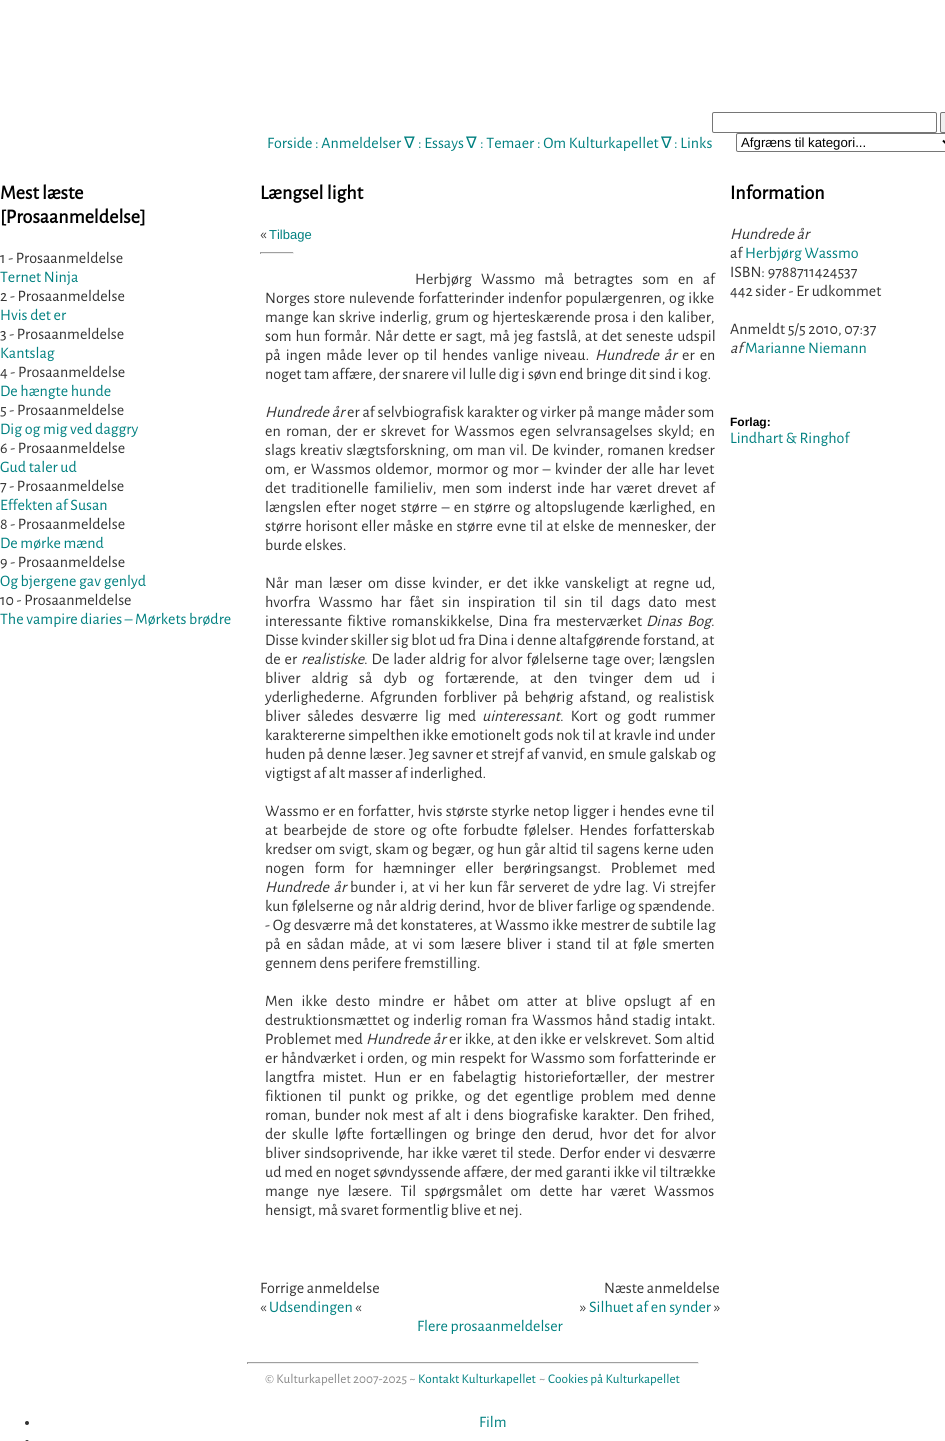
import math
import cairo



def draw_spaced(context, x, y, s, letter, word):
    context.move_to(x, y)
    for ch in s:
        context.show_text(ch)
        context.rel_move_to(letter + word * (ch == ' '), 0)


def rounded_rect(context, x, y, w, h, r):
    context.new_sub_path()
    for i, (u, v) in enumerate([(x + w - r, y + h - r), (x + r, y + h - r), (x + r, y + r), (x + w - r, y + r)]):
        context.arc(u, v, r, i * math.pi / 2, (i + 1) * math.pi / 2)
    context.close_path()


def draw(context):
    context.set_source_rgb(1, 1, 1)
    context.paint()
    rounded_rect(context, 712.5, 112.5, 224, 20, 1.5)
    context.set_source_rgb(118 / 255, 118 / 255, 118 / 255)
    context.set_line_width(1)
    context.stroke()
    context.set_source_rgb(239 / 255, 239 / 255, 239 / 255)
    rounded_rect(context, 940.5, 112.5, 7, 20, 1.5)
    context.fill_preserve()
    context.set_source_rgb(118 / 255, 118 / 255, 118 / 255)
    context.stroke()
    rounded_rect(context, 736.5, 133.5, 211, 18, 1.5)
    context.stroke()
    context.new_path()
    context.move_to(943, 140.5)
    context.line_to(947, 144.5)
    context.line_to(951, 140.5)
    context.set_source_rgb(0, 0, 0)
    context.set_line_width(2)
    context.stroke()
    context.set_source_rgb(159 / 255, 159 / 255, 159 / 255)
    context.rectangle(260, 252, 34, 1)
    context.fill()
    context.set_source_rgb(238 / 255, 238 / 255, 238 / 255)
    context.rectangle(293, 252, 1, 2)
    context.fill()
    context.rectangle(260, 253, 34, 1)
    context.fill()
    context.set_source_rgb(159 / 255, 159 / 255, 159 / 255)
    context.rectangle(260, 252, 1, 2)
    context.fill()
    context.rectangle(247, 1362, 452, 1)
    context.fill()
    context.set_source_rgb(238 / 255, 238 / 255, 238 / 255)
    context.rectangle(698, 1362, 1, 2)
    context.fill()
    context.rectangle(247, 1363, 452, 1)
    context.fill()
    context.set_source_rgb(159 / 255, 159 / 255, 159 / 255)
    context.rectangle(247, 1362, 1, 2)
    context.fill()
    context.set_source_rgb(51 / 255, 51 / 255, 51 / 255)
    context.arc(27, 1423, 2, 0, 2 * math.pi)
    context.fill()
    rounded_rect(context, 25, 1440, 4, 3, 2)
    context.fill()
    context.select_font_face("Alegreya Sans")
    context.set_font_size(16)
    context.set_source_rgb(0, 128 / 255, 128 / 255)
    context.move_to(267, 148)
    context.show_text("Forside : Anmeldelser")
    context.select_font_face("DejaVu Sans")
    context.move_to(404, 148)
    context.show_text("∇")
    context.select_font_face("Alegreya Sans")
    context.move_to(418, 148)
    context.show_text(": Essays")
    context.select_font_face("DejaVu Sans")
    context.move_to(466, 148)
    context.show_text("∇")
    context.select_font_face("Alegreya Sans")
    context.move_to(480, 148)
    context.show_text(": Temaer : Om Kulturkapellet")
    context.select_font_face("DejaVu Sans")
    context.move_to(661, 148)
    context.show_text("∇")
    context.select_font_face("Alegreya Sans")
    context.move_to(674, 148)
    context.show_text(": Links")
    context.select_font_face("Liberation Sans")
    context.set_font_size(13.25)
    context.set_source_rgb(0, 0, 0)
    context.move_to(741, 147)
    context.show_text("Afgræns til kategori...")
    context.select_font_face("Alegreya Sans", cairo.FontSlant.NORMAL, cairo.FontWeight.BOLD)
    context.set_font_size(20)
    context.move_to(0, 199)
    context.show_text("Mest læste")
    context.move_to(0, 223)
    context.show_text("[Prosaanmeldelse]")
    context.select_font_face("Alegreya Sans")
    context.set_font_size(16)
    context.set_source_rgb(51 / 255, 51 / 255, 51 / 255)
    context.move_to(0, 263)
    context.show_text("1 - Prosaanmeldelse")
    context.set_source_rgb(0, 128 / 255, 128 / 255)
    context.move_to(0, 282)
    context.show_text("Ternet Ninja")
    context.set_source_rgb(51 / 255, 51 / 255, 51 / 255)
    context.move_to(0, 301)
    context.show_text("2 - Prosaanmeldelse")
    context.set_source_rgb(0, 128 / 255, 128 / 255)
    context.move_to(0, 320)
    context.show_text("Hvis det er")
    context.set_source_rgb(51 / 255, 51 / 255, 51 / 255)
    context.move_to(0, 339)
    context.show_text("3 - Prosaanmeldelse")
    context.set_source_rgb(0, 128 / 255, 128 / 255)
    context.move_to(0, 358)
    context.show_text("Kantslag")
    context.set_source_rgb(51 / 255, 51 / 255, 51 / 255)
    context.move_to(0, 377)
    context.show_text("4 - Prosaanmeldelse")
    context.set_source_rgb(0, 128 / 255, 128 / 255)
    context.move_to(0, 396)
    context.show_text("De hængte hunde")
    context.set_source_rgb(51 / 255, 51 / 255, 51 / 255)
    context.move_to(0, 415)
    context.show_text("5 - Prosaanmeldelse")
    context.set_source_rgb(0, 128 / 255, 128 / 255)
    context.move_to(0, 434)
    context.show_text("Dig og mig ved daggry")
    context.set_source_rgb(51 / 255, 51 / 255, 51 / 255)
    context.move_to(0, 453)
    context.show_text("6 - Prosaanmeldelse")
    context.set_source_rgb(0, 128 / 255, 128 / 255)
    context.move_to(0, 472)
    context.show_text("Gud taler ud")
    context.set_source_rgb(51 / 255, 51 / 255, 51 / 255)
    context.move_to(0, 491)
    context.show_text("7 - Prosaanmeldelse")
    context.set_source_rgb(0, 128 / 255, 128 / 255)
    context.move_to(0, 510)
    context.show_text("Effekten af Susan")
    context.set_source_rgb(51 / 255, 51 / 255, 51 / 255)
    context.move_to(0, 529)
    context.show_text("8 - Prosaanmeldelse")
    context.set_source_rgb(0, 128 / 255, 128 / 255)
    context.move_to(0, 548)
    context.show_text("De mørke mænd")
    context.set_source_rgb(51 / 255, 51 / 255, 51 / 255)
    context.move_to(0, 567)
    context.show_text("9 - Prosaanmeldelse")
    context.set_source_rgb(0, 128 / 255, 128 / 255)
    context.move_to(0, 586)
    context.show_text("Og bjergene gav genlyd")
    context.set_source_rgb(51 / 255, 51 / 255, 51 / 255)
    context.move_to(0, 605)
    context.show_text("10 - Prosaanmeldelse")
    context.set_source_rgb(0, 128 / 255, 128 / 255)
    context.move_to(0, 624)
    context.show_text("The vampire diaries – Mørkets brødre")
    context.select_font_face("Alegreya Sans", cairo.FontSlant.NORMAL, cairo.FontWeight.BOLD)
    context.set_font_size(20)
    context.set_source_rgb(0, 0, 0)
    context.move_to(260, 199)
    context.show_text("Længsel light")
    context.select_font_face("Alegreya Sans")
    context.set_font_size(16)
    context.set_source_rgb(51 / 255, 51 / 255, 51 / 255)
    context.move_to(260, 239)
    context.show_text("«")
    context.select_font_face("Liberation Sans")
    context.set_font_size(13)
    context.set_source_rgb(0, 128 / 255, 128 / 255)
    context.move_to(269, 239)
    context.show_text("Tilbage")
    context.select_font_face("Alegreya Sans")
    context.set_font_size(16)
    context.set_source_rgb(51 / 255, 51 / 255, 51 / 255)
    draw_spaced(context, 415, 284, "Herbjørg Wassmo må betragtes som en af", 0, 6.5)
    draw_spaced(context, 265, 303, "Norges store nulevende forfatterinder indenfor populærgenren, og ikke", 0, 1)
    draw_spaced(context, 265, 322, "mange kan skrive inderlig, grum og hjerteskærende prosa i den kaliber,", 0, 1.1)
    draw_spaced(context, 265, 341, "som hun formår. Når dette er sagt, må jeg fastslå, at det seneste udspil", 0, 1.25)
    draw_spaced(context, 265, 360, "på ingen måde lever op til hendes vanlige niveau.", 0, 2.5)
    context.select_font_face("Alegreya Sans", cairo.FontSlant.ITALIC)
    draw_spaced(context, 595, 360, "Hundrede år", 0, 2.5)
    context.select_font_face("Alegreya Sans")
    draw_spaced(context, 682, 360, "er en", 0, 2.5)
    context.move_to(265, 379)
    context.show_text("noget tam affære, der snarere vil lulle dig i søvn end bringe dit sind i kog.")
    context.select_font_face("Alegreya Sans", cairo.FontSlant.ITALIC)
    draw_spaced(context, 265, 417, "Hundrede år", 0, 0.25)
    context.select_font_face("Alegreya Sans")
    draw_spaced(context, 347, 417, "er af selvbiografisk karakter og virker på mange måder som", 0, 0.25)
    draw_spaced(context, 265, 436, "en roman, der er skrevet for Wassmos egen selvransagelses skyld; en", 0, 2.75)
    draw_spaced(context, 265, 455, "slags kreativ slægtsforskning, om man vil. De kvinder, romanen kredser", 0, 1.1)
    draw_spaced(context, 265, 474, "om, er Wassmos oldemor, mormor og mor – kvinder der alle har levet", 0, 1.75)
    draw_spaced(context, 265, 493, "det traditionelle familieliv, men som inderst inde har været drevet af", 0, 2.75)
    draw_spaced(context, 265, 512, "længslen efter noget større – en større og altopslugende kærlighed, en", 0, 1.75)
    draw_spaced(context, 265, 531, "større horisont eller måske en større evne til at elske de mennesker, der", 0, 1)
    context.move_to(265, 550)
    context.show_text("burde elskes.")
    draw_spaced(context, 265, 588, "Når man læser om disse kvinder, er det ikke vanskeligt at regne ud,", 0, 3.25)
    draw_spaced(context, 265, 607, "hvorfra Wassmo har fået sin inspiration til sin til dags dato mest", 0, 5.25)
    draw_spaced(context, 265, 626, "interessante fiktive romanskikkelse, Dina fra mesterværket", 0, 2.5)
    context.select_font_face("Alegreya Sans", cairo.FontSlant.ITALIC)
    draw_spaced(context, 646, 626, "Dinas Bog", 0, 2.5)
    context.select_font_face("Alegreya Sans")
    context.move_to(711, 626)
    context.show_text(".")
    context.move_to(265, 645)
    context.show_text("Disse kvinder skiller sig blot ud fra Dina i denne altafgørende forstand, at")
    draw_spaced(context, 265, 664, "de er", 0, 1.25)
    context.select_font_face("Alegreya Sans", cairo.FontSlant.ITALIC)
    context.move_to(301, 664)
    context.show_text("realistiske")
    context.select_font_face("Alegreya Sans")
    draw_spaced(context, 364, 664, ". De lader aldrig for alvor følelserne tage over; længslen", 0, 1.25)
    draw_spaced(context, 265, 683, "bliver aldrig så dyb og fortærende, at den tvinger dem ud i", 0, 8.5)
    context.move_to(265, 702)
    context.show_text("yderlighederne.")
    draw_spaced(context, 370, 702, "Afgrunden forbliver på behørig afstand, og realistisk", 0, 3.5)
    draw_spaced(context, 265, 721, "bliver således desværre lig med", 0, 4.5)
    context.select_font_face("Alegreya Sans", cairo.FontSlant.ITALIC)
    context.move_to(482, 721)
    context.show_text("uinteressant")
    context.select_font_face("Alegreya Sans")
    draw_spaced(context, 560, 721, ". Kort og godt rummer", 0, 4.5)
    draw_spaced(context, 265, 740, "karaktererne simpelthen ikke emotionelt gods nok til at kravle ind under", 0, 0.25)
    draw_spaced(context, 265, 759, "huden på denne læser. Jeg savner et strejf af vanvid, en smule galskab og", 0, 0.25)
    context.move_to(265, 778)
    context.show_text("vigtigst af alt masser af inderlighed.")
    draw_spaced(context, 265, 816, "Wassmo er en forfatter, hvis største styrke netop ligger i hendes evne til", 0, 0.75)
    draw_spaced(context, 265, 835, "at bearbejde de store og ofte forbudte følelser. Hendes forfatterskab", 0, 3)
    draw_spaced(context, 265, 854, "kredser om svigt, skam og begær, og hun går altid til sagens kerne uden", 0, 0.75)
    draw_spaced(context, 265, 873, "nogen form for hæmninger eller berøringsangst. Problemet med", 0, 7.25)
    context.select_font_face("Alegreya Sans", cairo.FontSlant.ITALIC)
    draw_spaced(context, 265, 892, "Hundrede år", 0, 2)
    context.select_font_face("Alegreya Sans")
    draw_spaced(context, 350, 892, "bunder i, at vi her kun får serveret de ydre lag. Vi strejfer", 0, 1.75)
    draw_spaced(context, 265, 911, "kun følelserne og når aldrig derind, hvor de bliver farlige og spændende.", 0, 0.5)
    draw_spaced(context, 265, 930, "- Og desværre må det konstateres, at Wassmo ikke mestrer de subtile lag", 0, 0.25)
    draw_spaced(context, 265, 949, "på en sådan måde, at vi som læsere bliver i stand til at føle smerten", 0, 2.75)
    context.move_to(265, 968)
    context.show_text("gennem dens perifere fremstilling.")
    draw_spaced(context, 265, 1006, "Men ikke desto mindre er håbet om atter at blive opslugt af en", 0, 5.6)
    draw_spaced(context, 265, 1025, "destruktionsmættet og inderlig roman fra Wassmos hånd stadig intakt.", 0, 1.25)
    draw_spaced(context, 265, 1044, "Problemet med", 0, 0.5)
    context.select_font_face("Alegreya Sans", cairo.FontSlant.ITALIC)
    draw_spaced(context, 366, 1044, "Hundrede år", 0, 0.5)
    context.select_font_face("Alegreya Sans")
    draw_spaced(context, 449, 1044, "er ikke, at den ikke er velskrevet. Som altid", 0, 0.5)
    draw_spaced(context, 265, 1063, "er håndværket i orden, og min respekt for Wassmo som forfatterinde er", 0, 1)
    draw_spaced(context, 265, 1082, "langtfra mistet.", 0, 5)
    draw_spaced(context, 374, 1082, "Hun er en fabelagtig historiefortæller, der mestrer", 0, 5)
    draw_spaced(context, 265, 1101, "fiktionen til punkt og prikke, og det egentlige problem med denne", 0, 4.25)
    draw_spaced(context, 265, 1120, "roman, bunder nok mest af alt i dens biografiske karakter. Den frihed,", 0, 1.8)
    draw_spaced(context, 265, 1139, "der skulle løfte fortællingen og bringe den derud, hvor det for alvor", 0, 3.5)
    draw_spaced(context, 265, 1158, "bliver sindsoprivende, har ikke været til stede. Derfor ender vi desværre", 0, 1.25)
    draw_spaced(context, 265, 1177, "ud med en noget søvndyssende affære, der med garanti ikke vil tiltrække", 0, 0.25)
    draw_spaced(context, 265, 1196, "mange nye læsere. Til spørgsmålet om dette har været Wassmos", 0, 5.75)
    context.move_to(265, 1215)
    context.show_text("hensigt, må svaret formentlig blive et nej.")
    context.move_to(260, 1293)
    context.show_text("Forrige anmeldelse")
    context.move_to(260, 1312)
    context.show_text("«")
    context.set_source_rgb(0, 128 / 255, 128 / 255)
    context.move_to(269, 1312)
    context.show_text("Udsendingen")
    context.set_source_rgb(51 / 255, 51 / 255, 51 / 255)
    context.move_to(355, 1312)
    context.show_text("«")
    context.move_to(604, 1293)
    context.show_text("Næste anmeldelse")
    context.move_to(580, 1312)
    context.show_text("»")
    context.set_source_rgb(0, 128 / 255, 128 / 255)
    context.move_to(589, 1312)
    context.show_text("Silhuet af en synder")
    context.set_source_rgb(51 / 255, 51 / 255, 51 / 255)
    context.move_to(714, 1312)
    context.show_text("»")
    context.set_source_rgb(0, 128 / 255, 128 / 255)
    context.move_to(417, 1331)
    context.show_text("Flere prosaanmeldelser")
    context.select_font_face("Alegreya Sans", cairo.FontSlant.NORMAL, cairo.FontWeight.BOLD)
    context.set_font_size(20)
    context.set_source_rgb(0, 0, 0)
    context.move_to(730, 199)
    context.show_text("Information")
    context.select_font_face("Alegreya Sans", cairo.FontSlant.ITALIC)
    context.set_font_size(16)
    context.set_source_rgb(51 / 255, 51 / 255, 51 / 255)
    context.move_to(730, 239)
    context.show_text("Hundrede år")
    context.select_font_face("Alegreya Sans")
    context.move_to(730, 258)
    context.show_text("af")
    context.set_source_rgb(0, 128 / 255, 128 / 255)
    context.move_to(745, 258)
    context.show_text("Herbjørg Wassmo")
    context.set_source_rgb(51 / 255, 51 / 255, 51 / 255)
    context.move_to(730, 277)
    context.show_text("ISBN: 9788711424537")
    context.move_to(730, 296)
    context.show_text("442 sider - Er udkommet")
    context.move_to(730, 334)
    context.show_text("Anmeldt 5/5 2010, 07:37")
    context.select_font_face("Alegreya Sans", cairo.FontSlant.ITALIC)
    context.move_to(730, 353)
    context.show_text("af")
    context.select_font_face("Alegreya Sans")
    context.set_source_rgb(0, 128 / 255, 128 / 255)
    context.move_to(745, 353)
    context.show_text("Marianne Niemann")
    context.select_font_face("Liberation Sans", cairo.FontSlant.NORMAL, cairo.FontWeight.BOLD)
    context.set_font_size(12)
    context.set_source_rgb(0, 0, 0)
    context.move_to(730, 426)
    context.show_text("Forlag:")
    context.select_font_face("Alegreya Sans")
    context.set_font_size(16)
    context.set_source_rgb(0, 128 / 255, 128 / 255)
    context.move_to(730, 443)
    context.show_text("Lindhart & Ringhof")
    context.set_font_size(13.25)
    context.set_source_rgb(136 / 255, 136 / 255, 136 / 255)
    context.move_to(265, 1383)
    context.show_text("© Kulturkapellet 2007-2025 ~")
    context.set_source_rgb(0, 128 / 255, 128 / 255)
    context.move_to(418, 1383)
    context.show_text("Kontakt Kulturkapellet")
    context.set_source_rgb(136 / 255, 136 / 255, 136 / 255)
    context.move_to(539, 1383)
    context.show_text("~")
    context.set_source_rgb(0, 128 / 255, 128 / 255)
    context.move_to(548, 1383)
    context.show_text("Cookies på Kulturkapellet")
    context.set_font_size(16)
    context.move_to(479, 1427)
    context.show_text("Film")


surface = cairo.ImageSurface(cairo.Format.RGB24, 945, 1441)
context = cairo.Context(surface)
options = cairo.FontOptions()
options.set_hint_metrics(cairo.HintMetrics.OFF)
options.set_hint_style(cairo.HintStyle.NONE)
context.set_font_options(options)
context.set_miter_limit(4)
draw(context)
surface.write_to_png("out.png")
